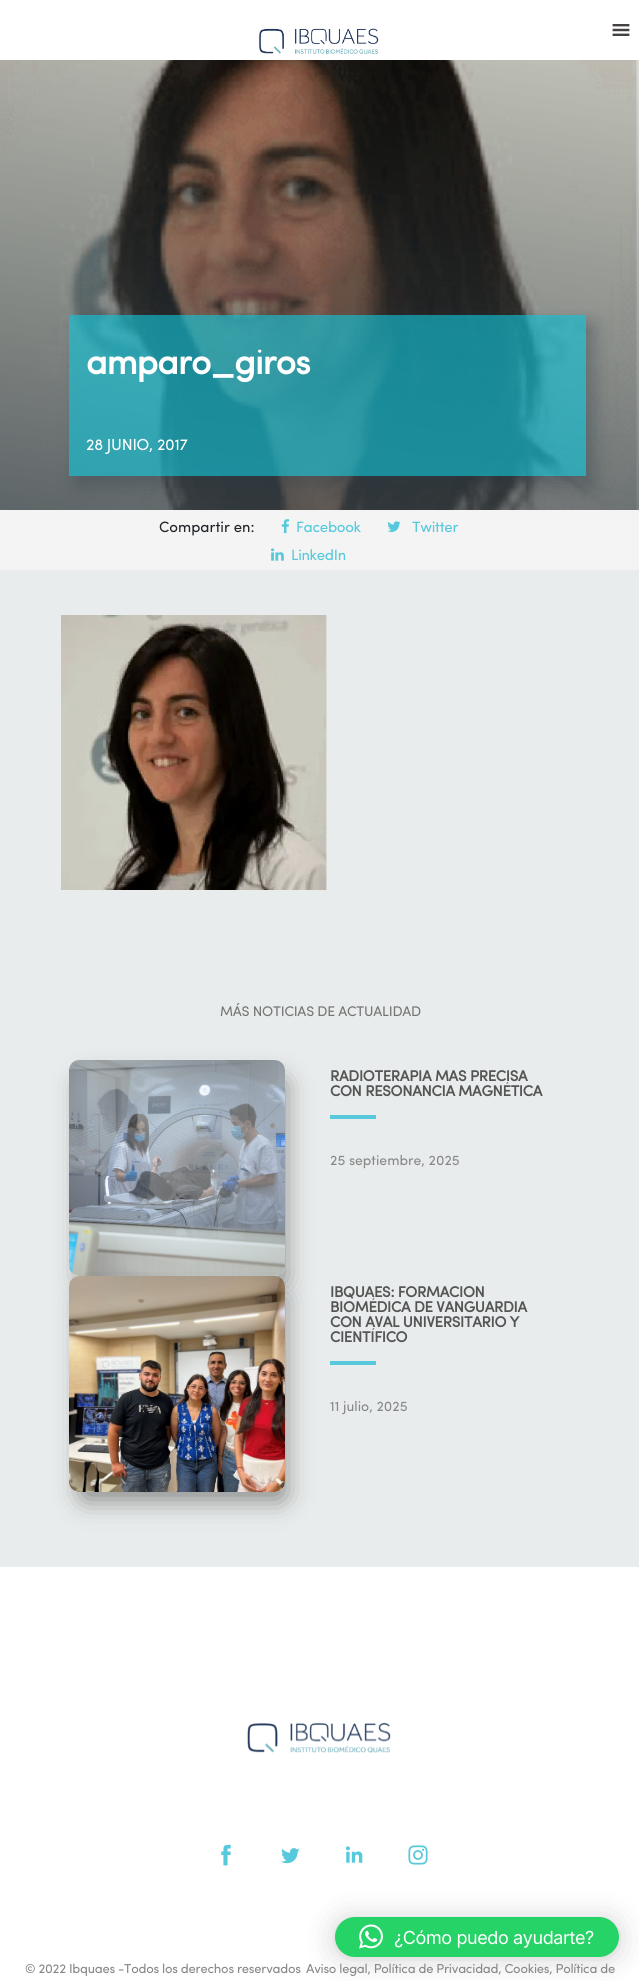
import math
import cairo



def draw_spaced(context, x, y, s, letter, word):
    context.move_to(x, y)
    for ch in s:
        context.show_text(ch)
        context.rel_move_to(letter + word * (ch == ' '), 0)


def rounded_rect(context, x, y, w, h, r):
    context.new_sub_path()
    for i, (u, v) in enumerate([(x + w - r, y + h - r), (x + r, y + h - r), (x + r, y + r), (x + w - r, y + r)]):
        context.arc(u, v, r, i * math.pi / 2, (i + 1) * math.pi / 2)
    context.close_path()


def draw_shadow(context, x, y, w, h, r, blur, alpha):
    context.push_group_with_content(cairo.Content.ALPHA)
    context.set_operator(cairo.Operator.SOURCE)
    for i in range(15, -16, -2):
        e = blur * i / 6
        if min(w, h) + 2 * e > 0:
            context.set_source_rgba(0, 0, 0, alpha * math.erfc((i - 1) / 8.5) / 2)
            rounded_rect(context, x - e, y - e, w + 2 * e, h + 2 * e, max(0, min(r + e + blur * .6, min(w, h) / 2 + e)))
            context.fill()
    context.mask(context.pop_group())


def draw_image(context, path, x, y, w, h):
    context.save()
    context.set_source_surface(cairo.ImageSurface.create_from_png(path), x, y)
    context.rectangle(x, y, w, h)
    context.fill()
    context.restore()


def draw(context):
    context.set_source_rgb(1, 1, 1)
    context.paint()
    draw_image(context, "images/1.png", 259, 28, 120, 26)
    draw_image(context, "images/2.png", 612, 24, 18, 12)
    draw_image(context, "images/3.png", 0, 60, 639, 450)
    gradient = cairo.LinearGradient(362, 16, 277, 554)
    gradient.add_color_stop_rgba(0, 67 / 255, 75 / 255, 75 / 255, 0.08)
    gradient.add_color_stop_rgba(1, 67 / 255, 76 / 255, 82 / 255, 0.8)
    context.set_source(gradient)
    context.rectangle(0, 60, 639, 450)
    context.fill()
    context.set_source_rgb(244 / 255, 244 / 255, 244 / 255)
    context.rectangle(0, 510, 639, 60)
    context.fill()
    context.save()
    context.set_fill_rule(cairo.FillRule.EVEN_ODD)
    context.new_path()
    context.move_to(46, 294)
    context.line_to(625, 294)
    context.line_to(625, 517)
    context.line_to(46, 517)
    context.close_path()
    context.move_to(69, 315)
    context.line_to(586, 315)
    context.line_to(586, 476)
    context.line_to(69, 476)
    context.close_path()
    context.clip()
    context.set_source_rgb(46 / 255, 61 / 255, 73 / 255)
    draw_shadow(context, 77, 325, 517, 161, 0, 10, 0.4)
    context.restore()
    context.set_source_rgba(18 / 255, 192 / 255, 212 / 255, 0.64)
    context.rectangle(69, 315, 517, 161)
    context.fill()
    draw_image(context, "images/4.png", 281, 519, 9, 15)
    draw_image(context, "images/5.png", 387, 521, 14, 11)
    draw_image(context, "images/6.png", 271, 548, 13, 13)
    context.set_source_rgb(233 / 255, 236 / 255, 236 / 255)
    context.rectangle(0, 570, 639, 997)
    context.fill()
    draw_image(context, "images/7.png", 61, 615, 266, 275)
    draw_image(context, "images/8.png", 69, 1060, 216, 216)
    context.save()
    context.set_fill_rule(cairo.FillRule.EVEN_ODD)
    context.new_path()
    context.move_to(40, 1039)
    context.line_to(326, 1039)
    context.line_to(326, 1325)
    context.line_to(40, 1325)
    context.close_path()
    context.move_to(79, 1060)
    context.line_to(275, 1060)
    context.curve_to(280.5, 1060, 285, 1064.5, 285, 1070)
    context.line_to(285, 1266)
    context.curve_to(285, 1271.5, 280.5, 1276, 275, 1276)
    context.line_to(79, 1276)
    context.curve_to(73.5, 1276, 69, 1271.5, 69, 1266)
    context.line_to(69, 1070)
    context.curve_to(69, 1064.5, 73.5, 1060, 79, 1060)
    context.close_path()
    context.clip()
    context.set_source_rgb(0, 0, 0)
    draw_shadow(context, 82, 1081, 202, 202, 3, 13.5, 0.45)
    context.restore()
    context.set_source_rgb(86 / 255, 201 / 255, 220 / 255)
    context.rectangle(330, 1115, 46, 4)
    context.fill()
    draw_image(context, "images/9.png", 69, 1276, 216, 216)
    context.save()
    context.set_fill_rule(cairo.FillRule.EVEN_ODD)
    context.new_path()
    context.move_to(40, 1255)
    context.line_to(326, 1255)
    context.line_to(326, 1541)
    context.line_to(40, 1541)
    context.close_path()
    context.move_to(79, 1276)
    context.line_to(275, 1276)
    context.curve_to(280.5, 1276, 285, 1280.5, 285, 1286)
    context.line_to(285, 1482)
    context.curve_to(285, 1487.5, 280.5, 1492, 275, 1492)
    context.line_to(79, 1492)
    context.curve_to(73.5, 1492, 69, 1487.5, 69, 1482)
    context.line_to(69, 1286)
    context.curve_to(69, 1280.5, 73.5, 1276, 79, 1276)
    context.close_path()
    context.clip()
    context.set_source_rgb(0, 0, 0)
    draw_shadow(context, 82, 1297, 202, 202, 3, 13.5, 0.45)
    context.restore()
    context.rectangle(330, 1361, 46, 4)
    context.fill()
    context.set_source_rgb(0, 0, 0)
    draw_shadow(context, 335, 1919, 284, 40, 20, 16, 0.16)
    draw_shadow(context, 335, 1918, 284, 40, 20, 3, 0.06)
    context.set_source_rgb(37 / 255, 211 / 255, 102 / 255)
    rounded_rect(context, 335, 1917, 284, 40, 20)
    context.fill()
    draw_image(context, "images/10.png", 359, 1924, 24, 25)
    draw_image(context, "images/11.png", 247, 1722, 144, 31)
    draw_image(context, "images/12.png", 221, 1844, 10, 22)
    draw_image(context, "images/13.png", 281, 1848, 19, 16)
    draw_image(context, "images/14.png", 345, 1846, 18, 17)
    draw_image(context, "images/15.png", 408, 1845, 20, 20)
    context.select_font_face("Sofia", cairo.FontSlant.NORMAL, cairo.FontWeight.BOLD)
    context.set_font_size(35)
    context.set_source_rgb(1, 1, 1)
    draw_spaced(context, 86, 374, "amparo_giros", -0.75, 0)
    context.select_font_face("Sofia")
    context.set_font_size(16)
    draw_spaced(context, 86, 450, "28 JUNIO, 2017", -0.25, 0)
    context.set_font_size(15)
    context.set_source_rgb(33 / 255, 37 / 255, 41 / 255)
    context.move_to(159, 532)
    context.show_text("Compartir en:")
    context.set_source_rgb(86 / 255, 201 / 255, 220 / 255)
    draw_spaced(context, 296, 532, "Facebook", -0.3, 0)
    draw_spaced(context, 412, 532, "Twitter", -0.3, 0)
    draw_spaced(context, 291, 560, "LinkedIn", -0.3, 0)
    context.set_font_size(14)
    context.set_source_rgb(118 / 255, 116 / 255, 116 / 255)
    draw_spaced(context, 220, 1016, "MÁS NOTICIAS DE ACTUALIDAD", -0.25, 0)
    context.save()
    context.rectangle(330, 1070, 231, 30)
    context.clip()
    context.select_font_face("Sofia", cairo.FontSlant.NORMAL, cairo.FontWeight.BOLD)
    context.set_font_size(15)
    context.set_source_rgb(85 / 255, 85 / 255, 85 / 255)
    draw_spaced(context, 330, 1081, "RADIOTERAPIA MÁS PRECISA", -0.3, 0)
    context.restore()
    context.select_font_face("Sofia", cairo.FontSlant.NORMAL, cairo.FontWeight.BOLD)
    context.set_font_size(15)
    context.set_source_rgb(85 / 255, 85 / 255, 85 / 255)
    draw_spaced(context, 330, 1096, "CON RESONANCIA MAGNÉTICA", -0.3, 0)
    context.select_font_face("Sofia")
    context.set_font_size(14)
    context.set_source_rgb(136 / 255, 136 / 255, 136 / 255)
    context.move_to(330, 1165)
    context.show_text("25 septiembre, 2025")
    context.save()
    context.rectangle(330, 1286, 231, 60)
    context.clip()
    context.select_font_face("Sofia", cairo.FontSlant.NORMAL, cairo.FontWeight.BOLD)
    context.set_font_size(15)
    context.set_source_rgb(85 / 255, 85 / 255, 85 / 255)
    draw_spaced(context, 330, 1297, "IBQUAES: FORMACIÓN", -0.3, 0)
    context.restore()
    context.select_font_face("Sofia", cairo.FontSlant.NORMAL, cairo.FontWeight.BOLD)
    context.set_font_size(15)
    context.set_source_rgb(85 / 255, 85 / 255, 85 / 255)
    draw_spaced(context, 330, 1312, "BIOMÉDICA DE VANGUARDIA", -0.3, 0)
    draw_spaced(context, 330, 1327, "CON AVAL UNIVERSITARIO Y", -0.3, 0)
    draw_spaced(context, 330, 1342, "CIENTÍFICO", -0.3, 0)
    context.select_font_face("Sofia")
    context.set_font_size(14)
    context.set_source_rgb(136 / 255, 136 / 255, 136 / 255)
    context.move_to(330, 1411)
    context.show_text("11 julio, 2025")
    context.select_font_face("Inter")
    context.set_font_size(18)
    context.set_source_rgb(1, 1, 1)
    draw_spaced(context, 394, 1944, "¿Cómo puedo ayudarte?", -0.4, 0)
    context.select_font_face("Sofia")
    context.set_font_size(13)
    context.set_source_rgb(136 / 255, 136 / 255, 136 / 255)
    draw_spaced(context, 25, 1973, "© 2022 Ibquaes -Todos los derechos reservados", -0.25, 0)
    draw_spaced(context, 306, 1973, "Aviso legal, Política de Privacidad, Cookies, Política de", -0.25, 0)


surface = cairo.ImageSurface(cairo.Format.RGB24, 639, 1981)
context = cairo.Context(surface)
options = cairo.FontOptions()
options.set_hint_metrics(cairo.HintMetrics.OFF)
options.set_hint_style(cairo.HintStyle.NONE)
context.set_font_options(options)
context.set_miter_limit(4)
draw(context)
surface.write_to_png("out.png")
